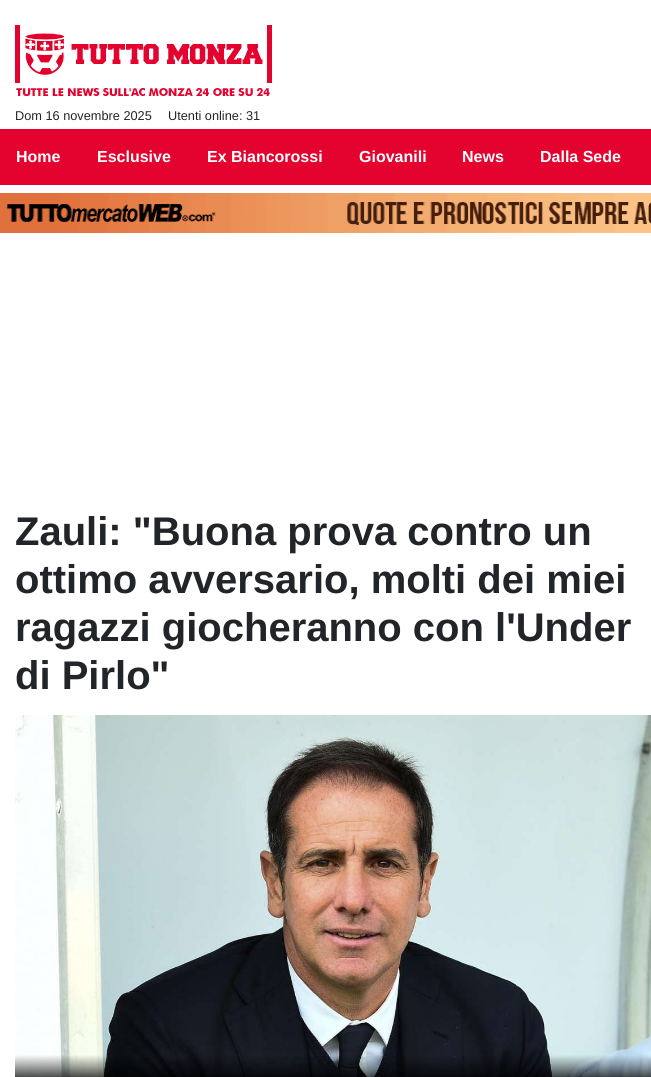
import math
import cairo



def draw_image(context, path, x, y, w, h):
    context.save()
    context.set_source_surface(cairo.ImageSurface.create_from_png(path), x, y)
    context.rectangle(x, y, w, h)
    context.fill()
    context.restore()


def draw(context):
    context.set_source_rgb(1, 1, 1)
    context.paint()
    draw_image(context, "images/1.png", 15, 25, 257, 71)
    context.set_source_rgb(228 / 255, 2 / 255, 46 / 255)
    context.rectangle(0, 129, 651, 56)
    context.fill()
    draw_image(context, "images/2.png", 0, 193, 651, 40)
    draw_image(context, "images/3.png", 15, 715, 636, 362)
    context.select_font_face("Liberation Sans")
    context.set_font_size(12.75)
    context.set_source_rgb(33 / 255, 37 / 255, 41 / 255)
    context.move_to(15, 120)
    context.show_text("Dom 16 novembre 2025")
    context.move_to(168, 120)
    context.show_text("Utenti online: 31")
    context.select_font_face("Liberation Sans", cairo.FontSlant.NORMAL, cairo.FontWeight.BOLD)
    context.set_font_size(16)
    context.set_source_rgb(1, 1, 1)
    context.move_to(16, 162)
    context.show_text("Home")
    context.move_to(97, 162)
    context.show_text("Esclusive")
    context.move_to(207, 162)
    context.show_text("Ex Biancorossi")
    context.move_to(359, 162)
    context.show_text("Giovanili")
    context.move_to(462, 162)
    context.show_text("News")
    context.move_to(540, 162)
    context.show_text("Dalla Sede")
    context.set_font_size(40)
    context.set_source_rgb(33 / 255, 37 / 255, 41 / 255)
    context.move_to(15, 545)
    context.show_text("Zauli: \"Buona prova contro un")
    context.move_to(15, 593)
    context.show_text("ottimo avversario, molti dei miei")
    context.move_to(15, 641)
    context.show_text("ragazzi giocheranno con l'Under")
    context.move_to(15, 689)
    context.show_text("di Pirlo\"")


surface = cairo.ImageSurface(cairo.Format.RGB24, 651, 1077)
context = cairo.Context(surface)
options = cairo.FontOptions()
options.set_hint_metrics(cairo.HintMetrics.OFF)
options.set_hint_style(cairo.HintStyle.NONE)
context.set_font_options(options)
context.set_miter_limit(4)
draw(context)
surface.write_to_png("out.png")
